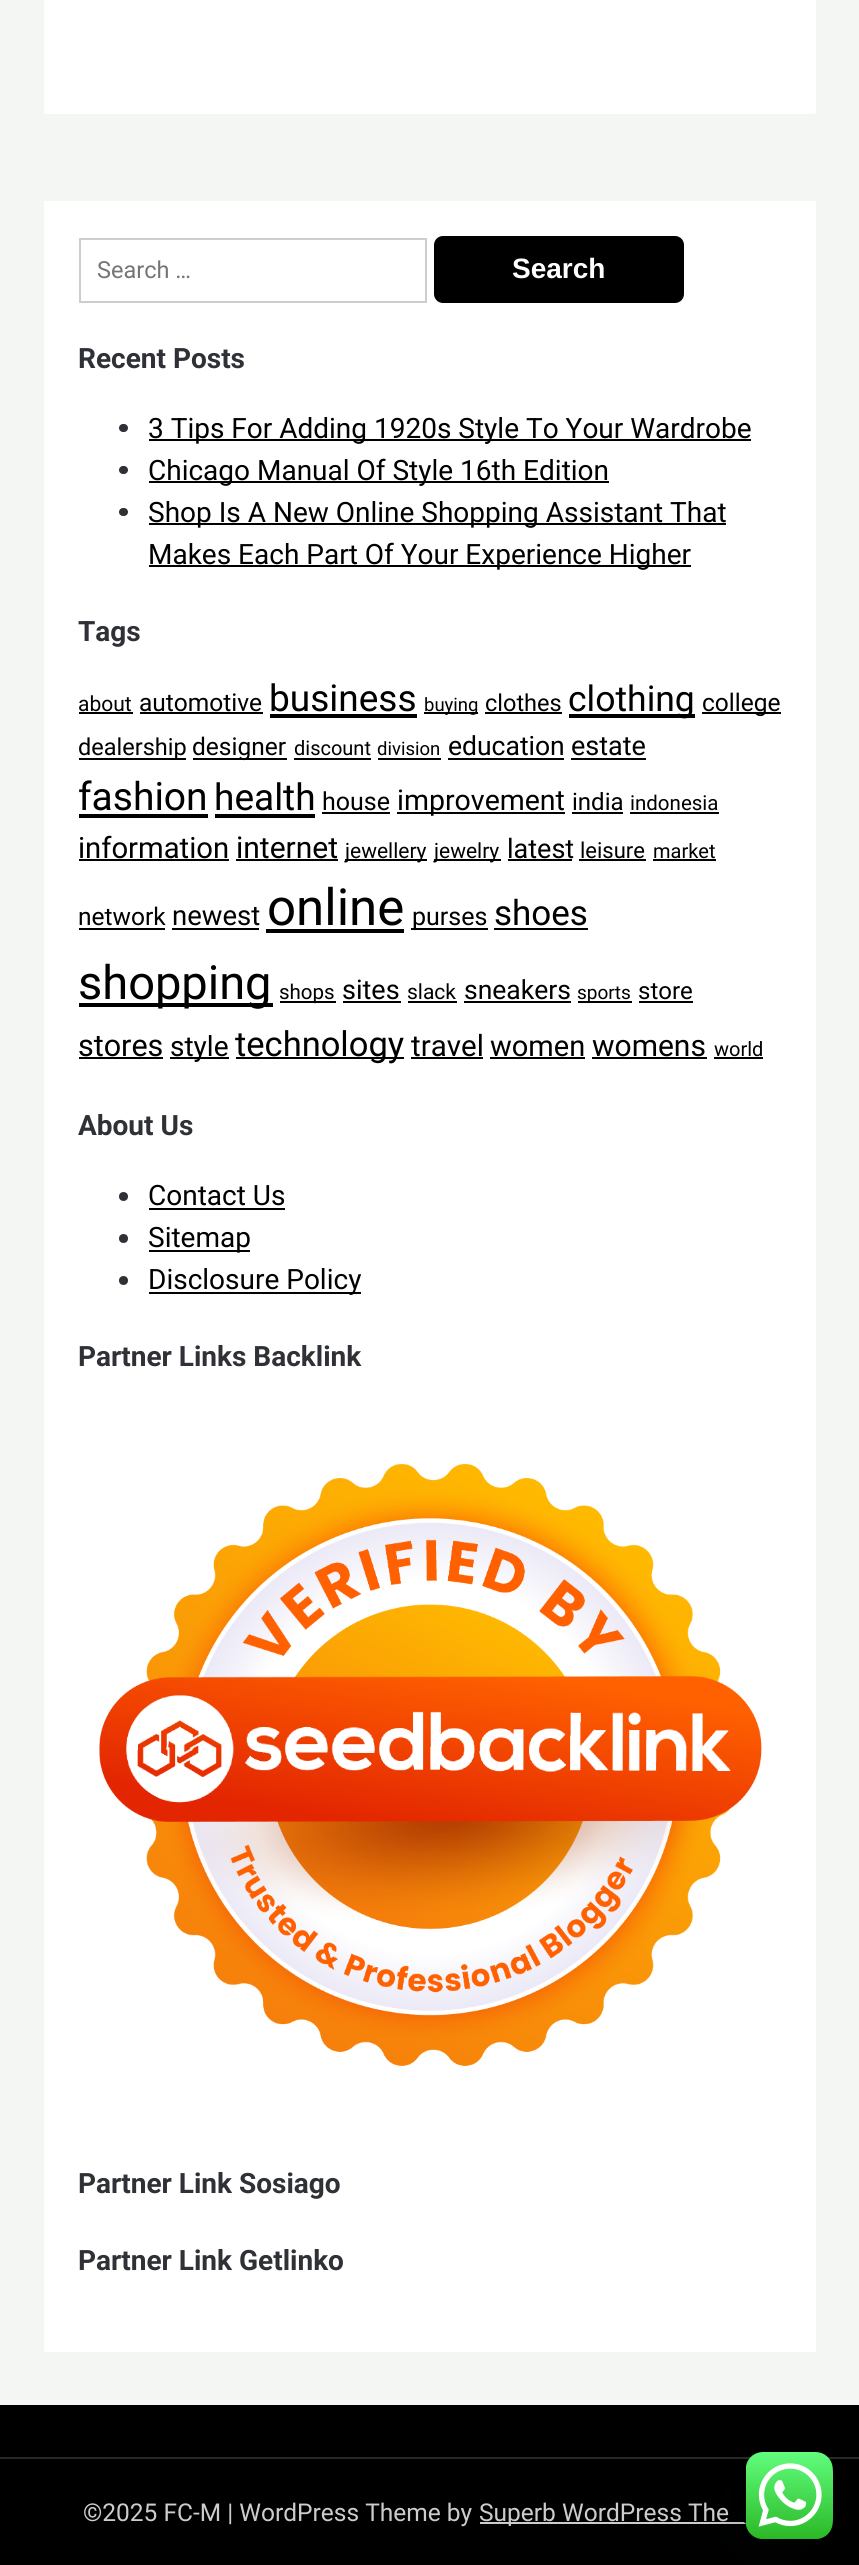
import math
import cairo



def rounded_rect(context, x, y, w, h, r):
    context.new_sub_path()
    for i, (u, v) in enumerate([(x + w - r, y + h - r), (x + r, y + h - r), (x + r, y + r), (x + w - r, y + r)]):
        context.arc(u, v, r, i * math.pi / 2, (i + 1) * math.pi / 2)
    context.close_path()


def draw_shadow(context, x, y, w, h, r, blur, alpha):
    context.push_group_with_content(cairo.Content.ALPHA)
    context.set_operator(cairo.Operator.SOURCE)
    for i in range(15, -16, -2):
        e = blur * i / 6
        if min(w, h) + 2 * e > 0:
            context.set_source_rgba(0, 0, 0, alpha * math.erfc((i - 1) / 8.5) / 2)
            rounded_rect(context, x - e, y - e, w + 2 * e, h + 2 * e, max(0, min(r + e + blur * .6, min(w, h) / 2 + e)))
            context.fill()
    context.mask(context.pop_group())


def draw_image(context, path, x, y, w, h):
    context.save()
    context.set_source_surface(cairo.ImageSurface.create_from_png(path), x, y)
    context.rectangle(x, y, w, h)
    context.fill()
    context.restore()


def draw(context):
    context.set_source_rgb(244 / 255, 246 / 255, 243 / 255)
    context.paint()
    context.set_source_rgb(1, 1, 1)
    rounded_rect(context, 44, -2, 772, 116, 2)
    context.fill()
    context.rectangle(44, 201, 772, 2151)
    context.fill()
    context.rectangle(80, 239, 346, 63)
    context.set_source_rgb(205 / 255, 205 / 255, 205 / 255)
    context.stroke()
    context.set_source_rgb(0, 0, 0)
    rounded_rect(context, 434, 236, 250, 67, 9)
    context.fill()
    context.set_source_rgb(47 / 255, 49 / 255, 54 / 255)
    rounded_rect(context, 119, 424, 9, 8, 4)
    context.fill()
    context.set_source_rgb(0, 0, 0)
    context.rectangle(149, 439, 602, 2)
    context.fill()
    context.set_source_rgb(47 / 255, 49 / 255, 54 / 255)
    rounded_rect(context, 119, 466, 9, 8, 4)
    context.fill()
    context.set_source_rgb(0, 0, 0)
    context.rectangle(149, 481, 460, 2)
    context.fill()
    context.set_source_rgb(47 / 255, 49 / 255, 54 / 255)
    rounded_rect(context, 119, 508, 9, 8, 4)
    context.fill()
    context.set_source_rgb(0, 0, 0)
    context.rectangle(149, 523, 577, 2)
    context.fill()
    context.rectangle(149, 565, 542, 2)
    context.fill()
    context.rectangle(79, 712, 54, 2)
    context.fill()
    context.rectangle(140, 712, 123, 2)
    context.fill()
    context.rectangle(270, 714, 147, 4)
    context.fill()
    context.rectangle(424, 712, 54, 2)
    context.fill()
    context.rectangle(485, 712, 77, 2)
    context.fill()
    context.rectangle(569, 714, 126, 4)
    context.fill()
    context.rectangle(702, 712, 79, 2)
    context.fill()
    context.rectangle(79, 758, 107, 2)
    context.fill()
    context.rectangle(193, 758, 94, 2)
    context.fill()
    context.rectangle(294, 758, 77, 2)
    context.fill()
    context.rectangle(378, 758, 63, 2)
    context.fill()
    context.rectangle(448, 758, 116, 2)
    context.fill()
    context.rectangle(571, 758, 75, 2)
    context.fill()
    context.rectangle(79, 814, 129, 4)
    context.fill()
    context.rectangle(215, 814, 100, 4)
    context.fill()
    context.rectangle(322, 812, 68, 2)
    context.fill()
    context.rectangle(397, 812, 168, 2)
    context.fill()
    context.rectangle(572, 812, 51, 2)
    context.fill()
    context.rectangle(630, 812, 89, 2)
    context.fill()
    context.rectangle(79, 859, 150, 2)
    context.fill()
    context.rectangle(236, 859, 102, 2)
    context.fill()
    context.rectangle(345, 859, 82, 2)
    context.fill()
    context.rectangle(434, 859, 67, 2)
    context.fill()
    context.rectangle(508, 859, 64, 2)
    context.fill()
    context.rectangle(579, 859, 67, 2)
    context.fill()
    context.rectangle(653, 859, 63, 2)
    context.fill()
    context.rectangle(79, 928, 86, 2)
    context.fill()
    context.rectangle(172, 928, 87, 2)
    context.fill()
    context.rectangle(266, 929, 138, 4)
    context.fill()
    context.rectangle(411, 928, 77, 2)
    context.fill()
    context.rectangle(494, 928, 94, 2)
    context.fill()
    context.rectangle(79, 1003, 194, 4)
    context.fill()
    context.rectangle(280, 1001, 56, 2)
    context.fill()
    context.rectangle(343, 1001, 58, 2)
    context.fill()
    context.rectangle(408, 1001, 49, 2)
    context.fill()
    context.rectangle(464, 1001, 107, 2)
    context.fill()
    context.rectangle(578, 1001, 54, 2)
    context.fill()
    context.rectangle(639, 1001, 54, 2)
    context.fill()
    context.rectangle(79, 1057, 84, 2)
    context.fill()
    context.rectangle(170, 1057, 59, 2)
    context.fill()
    context.rectangle(236, 1057, 168, 2)
    context.fill()
    context.rectangle(411, 1057, 72, 2)
    context.fill()
    context.rectangle(490, 1057, 95, 2)
    context.fill()
    context.rectangle(592, 1057, 115, 2)
    context.fill()
    context.rectangle(714, 1057, 49, 2)
    context.fill()
    context.set_source_rgb(47 / 255, 49 / 255, 54 / 255)
    context.arc(123.5, 1196.5, 4.5, 0, 2 * math.pi)
    context.fill()
    context.set_source_rgb(0, 0, 0)
    context.rectangle(149, 1208, 136, 2)
    context.fill()
    context.set_source_rgb(47 / 255, 49 / 255, 54 / 255)
    context.arc(123.5, 1238.5, 4.5, 0, 2 * math.pi)
    context.fill()
    context.set_source_rgb(0, 0, 0)
    context.rectangle(149, 1250, 101, 2)
    context.fill()
    context.set_source_rgb(47 / 255, 49 / 255, 54 / 255)
    context.arc(123.5, 1280.5, 4.5, 0, 2 * math.pi)
    context.fill()
    context.set_source_rgb(0, 0, 0)
    context.rectangle(149, 1292, 212, 2)
    context.fill()
    draw_image(context, "images/1.png", 99, 1464, 663, 602)
    context.rectangle(0, 2405, 859, 160)
    context.fill()
    context.set_source_rgb(41 / 255, 41 / 255, 41 / 255)
    context.rectangle(0, 2457, 859, 2)
    context.fill()
    context.set_source_rgb(204 / 255, 204 / 255, 204 / 255)
    context.rectangle(480, 2522, 266, 2)
    context.fill()
    context.save()
    context.set_fill_rule(cairo.FillRule.EVEN_ODD)
    context.new_path()
    context.move_to(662, 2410)
    context.line_to(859, 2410)
    context.line_to(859, 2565)
    context.line_to(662, 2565)
    context.close_path()
    context.move_to(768.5, 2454)
    context.curve_to(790, 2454, 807, 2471, 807, 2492.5)
    context.curve_to(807, 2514, 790, 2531, 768.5, 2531)
    context.curve_to(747, 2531, 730, 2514, 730, 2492.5)
    context.curve_to(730, 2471, 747, 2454, 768.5, 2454)
    context.close_path()
    context.clip()
    context.set_source_rgb(14 / 255, 17 / 255, 20 / 255)
    draw_shadow(context, 737, 2485, 63, 63, 31.5, 24.5, 0.15)
    context.restore()
    context.set_source_rgba(0, 0, 0, 0.98)
    context.arc(768.5, 2492.5, 38.5, 0, 2 * math.pi)
    context.fill()
    draw_image(context, "images/2.png", 746, 2452, 87, 87)
    context.select_font_face("Roboto")
    context.set_font_size(23.5)
    context.set_source_rgb(117 / 255, 117 / 255, 117 / 255)
    context.move_to(97, 278)
    context.show_text("Search …")
    context.select_font_face("Liberation Sans", cairo.FontSlant.NORMAL, cairo.FontWeight.BOLD)
    context.set_font_size(28)
    context.set_source_rgb(1, 1, 1)
    context.move_to(512, 278)
    context.show_text("Search")
    context.select_font_face("Roboto", cairo.FontSlant.NORMAL, cairo.FontWeight.BOLD)
    context.set_source_rgb(47 / 255, 49 / 255, 54 / 255)
    context.move_to(78, 368)
    context.show_text("Recent Posts")
    context.select_font_face("Roboto")
    context.set_source_rgb(0, 0, 0)
    context.move_to(148, 438)
    context.show_text("3 Tips For Adding 1920s Style To Your Wardrobe")
    context.move_to(148, 480)
    context.show_text("Chicago Manual Of Style 16th Edition")
    context.move_to(148, 522)
    context.show_text("Shop Is A New Online Shopping Assistant That")
    context.move_to(148, 564)
    context.show_text("Makes Each Part Of Your Experience Higher")
    context.select_font_face("Roboto", cairo.FontSlant.NORMAL, cairo.FontWeight.BOLD)
    context.set_source_rgb(47 / 255, 49 / 255, 54 / 255)
    context.move_to(78, 641)
    context.show_text("Tags")
    context.select_font_face("Roboto")
    context.set_font_size(21)
    context.set_source_rgb(0, 0, 0)
    context.move_to(78, 711)
    context.show_text("about")
    context.set_font_size(24.5)
    context.move_to(139, 711)
    context.show_text("automotive")
    context.set_font_size(37)
    context.move_to(269, 711)
    context.show_text("business")
    context.set_font_size(18.5)
    context.move_to(424, 711)
    context.show_text("buying")
    context.set_font_size(23.5)
    context.move_to(485, 711)
    context.show_text("clothes")
    context.set_font_size(35.5)
    context.move_to(568, 711)
    context.show_text("clothing")
    context.set_font_size(24.5)
    context.move_to(702, 711)
    context.show_text("college")
    context.set_font_size(23.5)
    context.move_to(78, 755)
    context.show_text("dealership")
    context.set_font_size(24.5)
    context.move_to(192, 755)
    context.show_text("designer")
    context.set_font_size(20)
    context.move_to(294, 755)
    context.show_text("discount")
    context.set_font_size(18.5)
    context.move_to(377, 755)
    context.show_text("division")
    context.set_font_size(26.5)
    context.move_to(448, 755)
    context.show_text("education")
    context.set_font_size(27)
    context.move_to(571, 755)
    context.show_text("estate")
    context.set_font_size(39)
    context.move_to(78, 810)
    context.show_text("fashion")
    context.set_font_size(37)
    context.move_to(214, 810)
    context.show_text("health")
    context.set_font_size(25)
    context.move_to(322, 810)
    context.show_text("house")
    context.set_font_size(28.5)
    context.move_to(397, 810)
    context.show_text("improvement")
    context.set_font_size(24)
    context.move_to(572, 810)
    context.show_text("india")
    context.set_font_size(20.5)
    context.move_to(630, 810)
    context.show_text("indonesia")
    context.set_font_size(29.25)
    context.move_to(78, 858)
    context.show_text("information")
    context.set_font_size(30)
    context.move_to(236, 858)
    context.show_text("internet")
    context.set_font_size(21)
    context.move_to(345, 858)
    context.show_text("jewellery")
    context.move_to(434, 858)
    context.show_text("jewelry")
    context.set_font_size(27)
    context.move_to(507, 858)
    context.show_text("latest")
    context.set_font_size(22)
    context.move_to(580, 858)
    context.show_text("leisure")
    context.set_font_size(20)
    context.move_to(653, 858)
    context.show_text("market")
    context.set_font_size(24.5)
    context.move_to(78, 925)
    context.show_text("network")
    context.set_font_size(27.5)
    context.move_to(172, 925)
    context.show_text("newest")
    context.set_font_size(51)
    context.move_to(267, 925)
    context.show_text("online")
    context.set_font_size(25)
    context.move_to(412, 925)
    context.show_text("purses")
    context.set_font_size(35)
    context.move_to(494, 925)
    context.show_text("shoes")
    context.set_font_size(47)
    context.move_to(78, 999)
    context.show_text("shopping")
    context.set_font_size(20.5)
    context.move_to(279, 999)
    context.show_text("shops")
    context.set_font_size(27)
    context.move_to(342, 999)
    context.show_text("sites")
    context.set_font_size(21)
    context.move_to(407, 999)
    context.show_text("slack")
    context.set_font_size(26.5)
    context.move_to(464, 999)
    context.show_text("sneakers")
    context.set_font_size(19)
    context.move_to(577, 999)
    context.show_text("sports")
    context.set_font_size(24)
    context.move_to(638, 999)
    context.show_text("store")
    context.set_font_size(30.5)
    context.move_to(78, 1056)
    context.show_text("stores")
    context.set_font_size(28)
    context.move_to(170, 1056)
    context.show_text("style")
    context.set_font_size(34.5)
    context.move_to(235, 1056)
    context.show_text("technology")
    context.set_font_size(29.5)
    context.move_to(411, 1056)
    context.show_text("travel")
    context.set_font_size(29)
    context.move_to(490, 1056)
    context.show_text("women")
    context.set_font_size(30)
    context.move_to(592, 1056)
    context.show_text("womens")
    context.set_font_size(20)
    context.move_to(714, 1056)
    context.show_text("world")
    context.select_font_face("Roboto", cairo.FontSlant.NORMAL, cairo.FontWeight.BOLD)
    context.set_font_size(28)
    context.set_source_rgb(47 / 255, 49 / 255, 54 / 255)
    context.move_to(78, 1135)
    context.show_text("About Us")
    context.select_font_face("Roboto")
    context.set_source_rgb(0, 0, 0)
    context.move_to(148, 1205)
    context.show_text("Contact Us")
    context.move_to(148, 1247)
    context.show_text("Sitemap")
    context.move_to(148, 1289)
    context.show_text("Disclosure Policy")
    context.select_font_face("Roboto", cairo.FontSlant.NORMAL, cairo.FontWeight.BOLD)
    context.set_source_rgb(47 / 255, 49 / 255, 54 / 255)
    context.move_to(78, 1366)
    context.show_text("Partner Links Backlink")
    context.move_to(78, 2193)
    context.show_text("Partner Link Sosiago")
    context.move_to(78, 2270)
    context.show_text("Partner Link Getlinko")
    context.select_font_face("Roboto")
    context.set_font_size(24.5)
    context.set_source_rgb(204 / 255, 204 / 255, 204 / 255)
    context.move_to(83, 2521)
    context.show_text("©2025 FC-M | WordPress Theme by")
    context.move_to(479, 2521)
    context.show_text("Superb WordPress The")


surface = cairo.ImageSurface(cairo.Format.RGB24, 859, 2565)
context = cairo.Context(surface)
options = cairo.FontOptions()
options.set_hint_metrics(cairo.HintMetrics.OFF)
options.set_hint_style(cairo.HintStyle.NONE)
context.set_font_options(options)
context.set_miter_limit(4)
draw(context)
surface.write_to_png("out.png")
